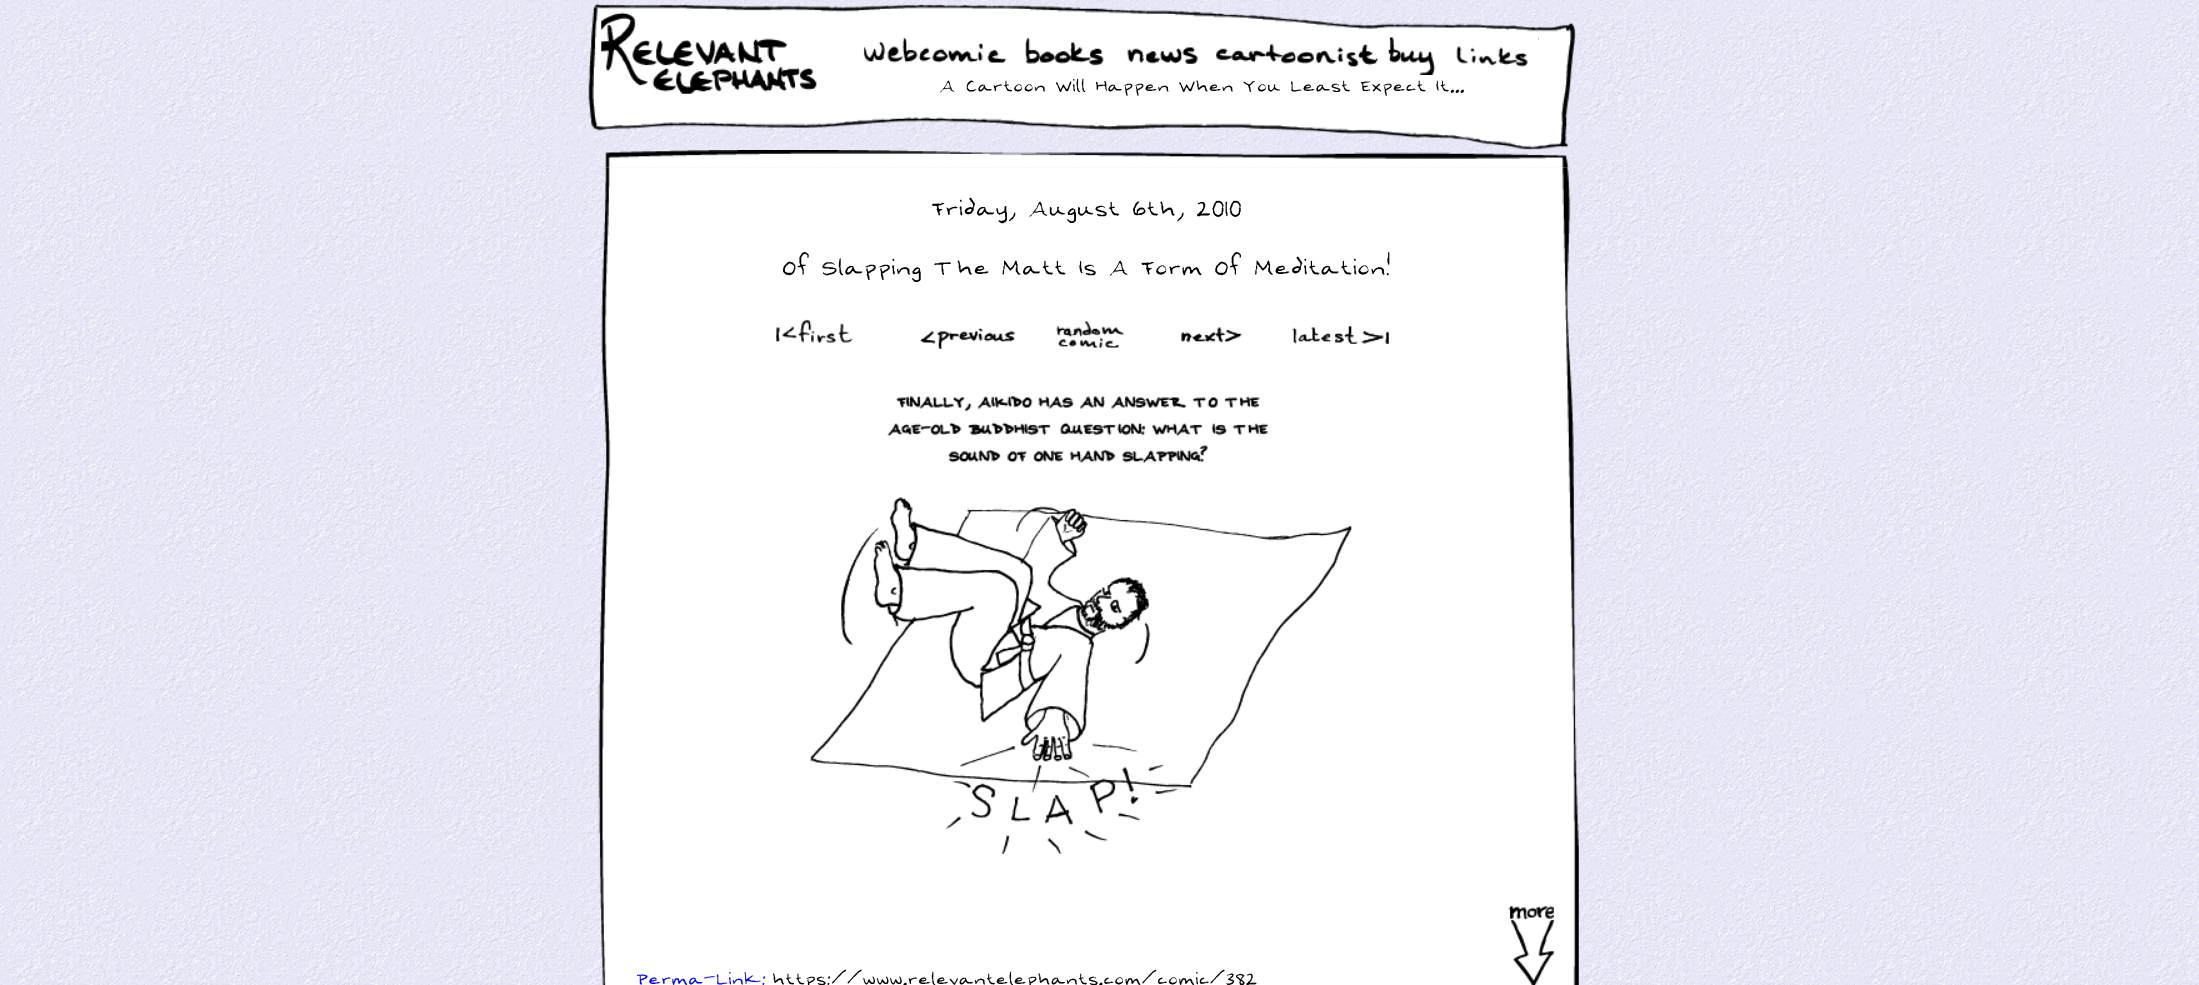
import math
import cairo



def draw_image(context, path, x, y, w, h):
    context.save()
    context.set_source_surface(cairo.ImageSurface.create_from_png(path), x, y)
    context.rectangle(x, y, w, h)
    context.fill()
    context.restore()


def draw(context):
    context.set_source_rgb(1, 1, 1)
    context.paint()
    draw_image(context, "images/1.png", 0, 0, 2199, 985)
    draw_image(context, "images/2.png", 588, 3, 988, 147)
    draw_image(context, "images/3.png", 601, 12, 216, 82)
    draw_image(context, "images/4.png", 863, 37, 144, 26)
    draw_image(context, "images/5.png", 1025, 37, 79, 29)
    draw_image(context, "images/6.png", 1127, 47, 71, 17)
    draw_image(context, "images/7.png", 1216, 43, 162, 24)
    draw_image(context, "images/8.png", 1388, 37, 48, 38)
    draw_image(context, "images/9.png", 1456, 37, 83, 30)
    draw_image(context, "images/11.png", 598, 167, 981, 818)
    draw_image(context, "images/10.png", 605, 150, 964, 18)
    draw_image(context, "images/12.png", 776, 319, 77, 24)
    draw_image(context, "images/13.png", 920, 328, 96, 21)
    draw_image(context, "images/14.png", 1056, 321, 68, 27)
    draw_image(context, "images/15.png", 1181, 327, 61, 16)
    draw_image(context, "images/16.png", 1292, 326, 97, 18)
    draw_image(context, "images/17.png", 810, 396, 542, 458)
    draw_image(context, "images/18.png", 1508, 906, 46, 79)
    context.select_font_face("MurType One")
    context.set_font_size(27.5)
    context.set_source_rgb(0, 0, 0)
    context.move_to(939, 91)
    context.show_text("A Cartoon Will Happen When You Least Expect It...")
    context.set_font_size(35)
    context.move_to(931, 215)
    context.show_text("Friday, August 6th, 2010")
    context.move_to(782, 274)
    context.show_text("Of Slapping The Matt Is A Form Of Meditation!")
    context.set_font_size(27.5)
    context.set_source_rgb(0, 0, 238 / 255)
    context.move_to(636, 984)
    context.show_text("Perma-Link:")
    context.set_source_rgb(0, 0, 0)
    context.move_to(772, 984)
    context.show_text("https://www.relevantelephants.com/comic/382")


surface = cairo.ImageSurface(cairo.Format.RGB24, 2199, 985)
context = cairo.Context(surface)
options = cairo.FontOptions()
options.set_hint_metrics(cairo.HintMetrics.OFF)
options.set_hint_style(cairo.HintStyle.NONE)
context.set_font_options(options)
context.set_miter_limit(4)
draw(context)
surface.write_to_png("out.png")
